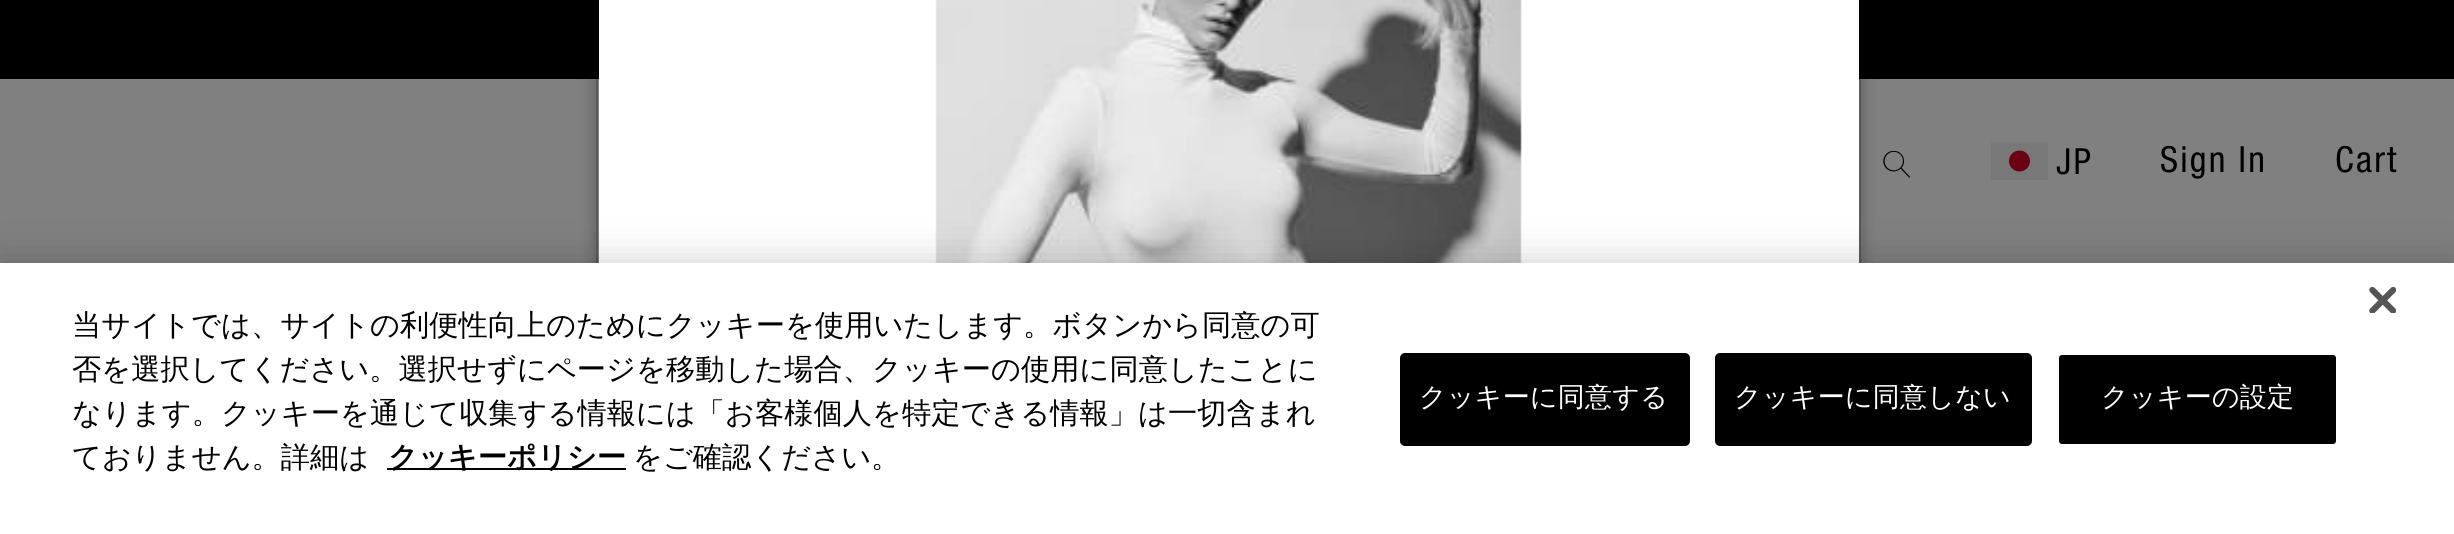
import math
import cairo



def draw_spaced(context, x, y, s, letter, word):
    context.move_to(x, y)
    for ch in s:
        context.show_text(ch)
        context.rel_move_to(letter + word * (ch == ' '), 0)


def rounded_rect(context, x, y, w, h, r):
    context.new_sub_path()
    for i, (u, v) in enumerate([(x + w - r, y + h - r), (x + r, y + h - r), (x + r, y + r), (x + w - r, y + r)]):
        context.arc(u, v, r, i * math.pi / 2, (i + 1) * math.pi / 2)
    context.close_path()


def draw_shadow(context, x, y, w, h, r, blur, alpha):
    context.push_group_with_content(cairo.Content.ALPHA)
    context.set_operator(cairo.Operator.SOURCE)
    for i in range(15, -16, -2):
        e = blur * i / 6
        if min(w, h) + 2 * e > 0:
            context.set_source_rgba(0, 0, 0, alpha * math.erfc((i - 1) / 8.5) / 2)
            rounded_rect(context, x - e, y - e, w + 2 * e, h + 2 * e, max(0, min(r + e + blur * .6, min(w, h) / 2 + e)))
            context.fill()
    context.mask(context.pop_group())


def draw_image(context, path, x, y, w, h):
    context.save()
    context.set_source_surface(cairo.ImageSurface.create_from_png(path), x, y)
    context.rectangle(x, y, w, h)
    context.fill()
    context.restore()


def draw(context):
    context.set_source_rgb(128 / 255, 128 / 255, 128 / 255)
    context.paint()
    context.set_source_rgb(0, 0, 0)
    context.rectangle(0, 0, 2454, 79)
    context.fill()
    draw_image(context, "images/2.png", 1883, 151, 27, 27)
    context.save()
    context.set_fill_rule(cairo.FillRule.EVEN_ODD)
    context.new_path()
    context.move_to(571, 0)
    context.line_to(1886, 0)
    context.line_to(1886, 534)
    context.line_to(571, 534)
    context.close_path()
    context.move_to(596, -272)
    context.line_to(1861, -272)
    context.line_to(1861, 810)
    context.line_to(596, 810)
    context.close_path()
    context.clip()
    context.set_source_rgb(0, 0, 0)
    draw_shadow(context, 596, -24, 1265, 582, 0, 8, 0.3)
    context.restore()
    context.set_source_rgb(1, 1, 1)
    context.rectangle(599, 0, 1260, 263)
    context.fill()
    context.rectangle(597, -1, 1263, 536)
    context.set_source_rgba(0, 0, 0, 0.3)
    context.stroke()
    draw_image(context, "images/1.png", 935, 0, 587, 263)
    context.set_source_rgb(120 / 255, 120 / 255, 120 / 255)
    context.rectangle(1991, 142, 57, 38)
    context.fill()
    context.set_source_rgb(108 / 255, 0, 20 / 255)
    context.arc(2019.5, 161, 10.5, 0, 2 * math.pi)
    context.fill()
    context.set_source_rgb(0, 0, 0)
    draw_shadow(context, 0, 263, 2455, 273, 0, 20, 0.2)
    context.set_source_rgb(1, 1, 1)
    context.rectangle(0, 263, 2454, 271)
    context.fill()
    draw_image(context, "images/3.png", 2369, 286, 27, 27)
    context.set_source_rgb(0, 0, 0)
    context.rectangle(387, 468, 239, 2)
    context.fill()
    rounded_rect(context, 1401, 354, 288, 91, 4)
    context.fill_preserve()
    context.stroke()
    rounded_rect(context, 1716, 354, 315, 91, 4)
    context.fill_preserve()
    context.stroke()
    rounded_rect(context, 2058, 354, 279, 91, 4)
    context.fill_preserve()
    context.set_source_rgb(1, 1, 1)
    context.stroke()
    context.select_font_face("Helvetica Neue")
    context.set_font_size(36)
    context.set_source_rgb(0, 0, 0)
    draw_spaced(context, 2056, 174, "JP", 2.25, 0)
    draw_spaced(context, 2160, 172, "Sign In", 2.25, 0)
    draw_spaced(context, 2335, 172, "Cart", 2.25, 0)
    context.select_font_face("WenQuanYi Zen Hei Medium")
    context.set_font_size(29.25)
    context.move_to(72, 335)
    context.show_text("当サイトでは、サイトの利便性向上のためにクッキーを使用いたします。ボタンから同意の可")
    context.move_to(72, 379)
    context.show_text("否を選択してください。選択せずにページを移動した場合、クッキーの使用に同意したことに")
    context.move_to(72, 423)
    context.show_text("なります。クッキーを通じて収集する情報には「お客様個人を特定できる情報」は一切含まれ")
    context.move_to(72, 467)
    context.show_text("ておりません。詳細は")
    context.select_font_face("WenQuanYi Zen Hei", cairo.FontSlant.NORMAL, cairo.FontWeight.BOLD)
    context.move_to(388, 467)
    context.show_text("クッキーポリシー")
    context.select_font_face("WenQuanYi Zen Hei Medium")
    context.move_to(633, 467)
    context.show_text("をご確認ください。")
    context.set_font_size(27)
    context.set_source_rgb(1, 1, 1)
    draw_spaced(context, 1419, 406, "クッキーに同意する", 0.25, 0)
    draw_spaced(context, 1734, 406, "クッキーに同意しない", 0.25, 0)
    draw_spaced(context, 2101, 406, "クッキーの設定", 0.25, 0)


surface = cairo.ImageSurface(cairo.Format.RGB24, 2454, 534)
context = cairo.Context(surface)
options = cairo.FontOptions()
options.set_hint_metrics(cairo.HintMetrics.OFF)
options.set_hint_style(cairo.HintStyle.NONE)
context.set_font_options(options)
context.set_miter_limit(4)
draw(context)
surface.write_to_png("out.png")
